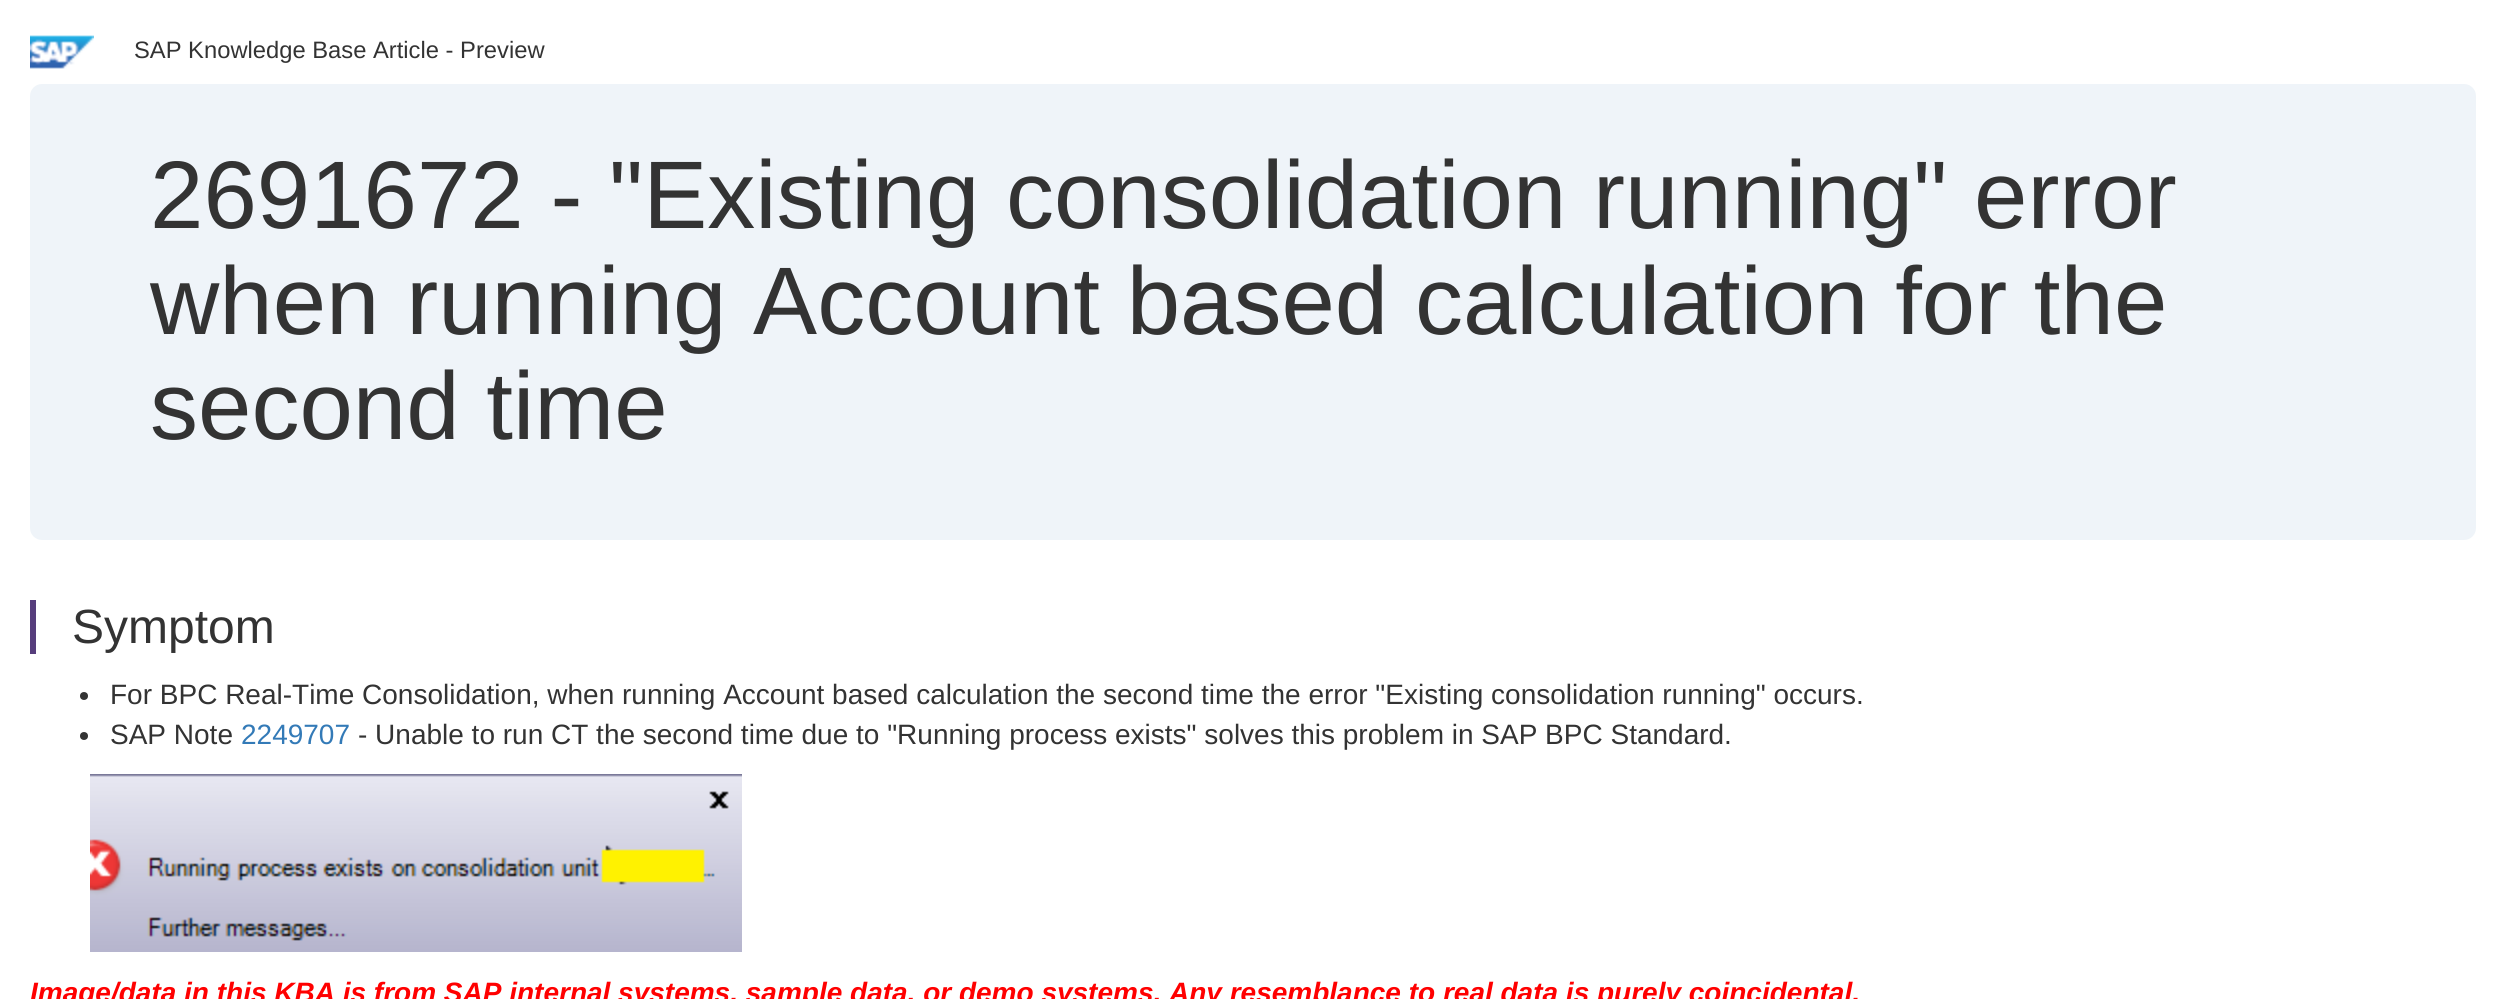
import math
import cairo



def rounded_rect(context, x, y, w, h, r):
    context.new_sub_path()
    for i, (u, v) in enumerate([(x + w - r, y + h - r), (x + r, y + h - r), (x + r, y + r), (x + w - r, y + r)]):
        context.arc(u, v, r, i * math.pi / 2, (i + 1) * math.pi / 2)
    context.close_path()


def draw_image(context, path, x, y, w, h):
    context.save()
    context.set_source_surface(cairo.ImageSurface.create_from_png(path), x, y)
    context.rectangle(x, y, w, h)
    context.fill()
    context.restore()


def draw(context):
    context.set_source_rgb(1, 1, 1)
    context.paint()
    draw_image(context, "images/1.png", 30, 35, 64, 34)
    context.set_source_rgb(239 / 255, 244 / 255, 249 / 255)
    rounded_rect(context, 30, 84, 2446, 456, 12)
    context.fill()
    context.set_source_rgb(86 / 255, 61 / 255, 124 / 255)
    context.rectangle(30, 600, 6, 54)
    context.fill()
    context.set_source_rgb(51 / 255, 51 / 255, 51 / 255)
    context.arc(84, 696, 4, 0, 2 * math.pi)
    context.fill()
    context.arc(84, 736, 4, 0, 2 * math.pi)
    context.fill()
    draw_image(context, "images/2.png", 90, 774, 652, 178)
    context.select_font_face("Liberation Sans")
    context.set_font_size(23.75)
    context.move_to(134, 58)
    context.show_text("SAP Knowledge Base Article - Preview")
    context.set_font_size(96)
    context.move_to(150, 228)
    context.show_text("2691672 - \"Existing consolidation running\" error")
    context.move_to(150, 334)
    context.show_text("when running Account based calculation for the")
    context.move_to(150, 439)
    context.show_text("second time")
    context.set_font_size(48)
    context.move_to(72, 643)
    context.show_text("Symptom")
    context.set_font_size(28)
    context.move_to(110, 704)
    context.show_text("For BPC Real-Time Consolidation, when running Account based calculation the second time the error \"Existing consolidation running\" occurs.")
    context.move_to(110, 744)
    context.show_text("SAP Note")
    context.set_source_rgb(51 / 255, 122 / 255, 183 / 255)
    context.move_to(241, 744)
    context.show_text("2249707")
    context.set_source_rgb(51 / 255, 51 / 255, 51 / 255)
    context.move_to(358, 744)
    context.show_text("- Unable to run CT the second time due to \"Running process exists\" solves this problem in SAP BPC Standard.")
    context.select_font_face("Liberation Sans", cairo.FontSlant.ITALIC, cairo.FontWeight.BOLD)
    context.set_source_rgb(1, 0, 0)
    context.move_to(30, 1002)
    context.show_text("Image/data in this KBA is from SAP internal systems, sample data, or demo systems. Any resemblance to real data is purely coincidental.")


surface = cairo.ImageSurface(cairo.Format.RGB24, 2505, 999)
context = cairo.Context(surface)
options = cairo.FontOptions()
options.set_hint_metrics(cairo.HintMetrics.OFF)
options.set_hint_style(cairo.HintStyle.NONE)
context.set_font_options(options)
context.set_miter_limit(4)
draw(context)
surface.write_to_png("out.png")
